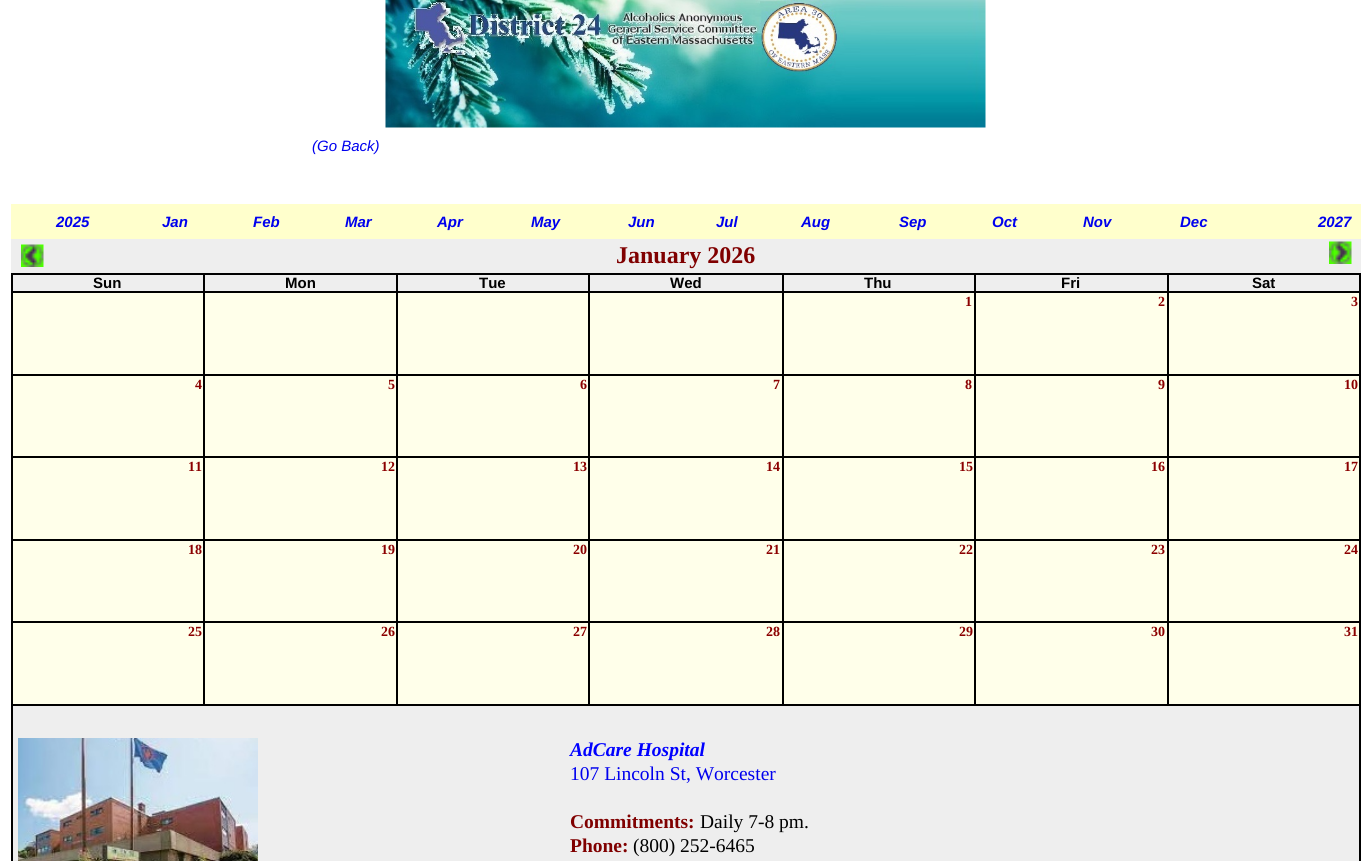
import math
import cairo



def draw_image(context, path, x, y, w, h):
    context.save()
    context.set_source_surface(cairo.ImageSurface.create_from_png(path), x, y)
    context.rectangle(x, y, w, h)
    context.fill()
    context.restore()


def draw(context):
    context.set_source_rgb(1, 1, 1)
    context.paint()
    draw_image(context, "images/1.png", 385, 0, 601, 128)
    context.set_source_rgb(1, 1, 204 / 255)
    context.rectangle(11, 204, 1350, 35)
    context.fill()
    context.set_source_rgb(238 / 255, 238 / 255, 238 / 255)
    context.rectangle(13, 241, 1346, 31)
    context.fill()
    context.rectangle(11, 239, 1350, 2)
    context.fill()
    context.rectangle(1359, 239, 2, 34)
    context.fill()
    context.rectangle(11, 272, 1350, 1)
    context.fill()
    draw_image(context, "images/2.png", 1329, 241, 23, 23)
    context.rectangle(11, 239, 2, 34)
    context.fill()
    draw_image(context, "images/3.png", 21, 244, 23, 23)
    context.set_source_rgb(1, 1, 234 / 255)
    context.rectangle(13, 293, 1346, 411)
    context.fill()
    context.set_source_rgb(0, 0, 0)
    context.rectangle(11, 273, 1350, 2)
    context.fill()
    context.rectangle(1359, 273, 2, 588)
    context.fill()
    context.rectangle(11, 273, 2, 588)
    context.fill()
    context.set_source_rgb(238 / 255, 238 / 255, 238 / 255)
    context.rectangle(13, 275, 1346, 16)
    context.fill()
    context.set_source_rgb(0, 0, 0)
    context.rectangle(1167, 291, 194, 2)
    context.fill()
    context.rectangle(1167, 374, 194, 2)
    context.fill()
    context.rectangle(1167, 456, 194, 2)
    context.fill()
    context.rectangle(1167, 539, 194, 2)
    context.fill()
    context.rectangle(1167, 621, 194, 2)
    context.fill()
    context.rectangle(11, 704, 1350, 2)
    context.fill()
    context.rectangle(1167, 621, 2, 84)
    context.fill()
    context.rectangle(974, 621, 195, 2)
    context.fill()
    context.rectangle(1167, 539, 2, 84)
    context.fill()
    context.rectangle(974, 539, 195, 2)
    context.fill()
    context.rectangle(1167, 456, 2, 84)
    context.fill()
    context.rectangle(974, 456, 195, 2)
    context.fill()
    context.rectangle(1167, 374, 2, 84)
    context.fill()
    context.rectangle(974, 374, 195, 2)
    context.fill()
    context.rectangle(1167, 291, 2, 84)
    context.fill()
    context.rectangle(974, 291, 195, 2)
    context.fill()
    context.rectangle(974, 621, 2, 84)
    context.fill()
    context.rectangle(782, 621, 193, 2)
    context.fill()
    context.rectangle(974, 539, 2, 84)
    context.fill()
    context.rectangle(782, 539, 193, 2)
    context.fill()
    context.rectangle(974, 456, 2, 84)
    context.fill()
    context.rectangle(782, 456, 193, 2)
    context.fill()
    context.rectangle(974, 374, 2, 84)
    context.fill()
    context.rectangle(782, 374, 193, 2)
    context.fill()
    context.rectangle(974, 291, 2, 84)
    context.fill()
    context.rectangle(782, 291, 193, 2)
    context.fill()
    context.rectangle(782, 621, 2, 84)
    context.fill()
    context.rectangle(588, 621, 195, 2)
    context.fill()
    context.rectangle(782, 539, 2, 84)
    context.fill()
    context.rectangle(588, 539, 195, 2)
    context.fill()
    context.rectangle(782, 456, 2, 84)
    context.fill()
    context.rectangle(588, 456, 195, 2)
    context.fill()
    context.rectangle(782, 374, 2, 84)
    context.fill()
    context.rectangle(588, 374, 195, 2)
    context.fill()
    context.rectangle(782, 291, 2, 84)
    context.fill()
    context.rectangle(588, 291, 195, 2)
    context.fill()
    context.rectangle(588, 621, 2, 84)
    context.fill()
    context.rectangle(396, 621, 194, 2)
    context.fill()
    context.rectangle(588, 539, 2, 84)
    context.fill()
    context.rectangle(396, 539, 194, 2)
    context.fill()
    context.rectangle(588, 456, 2, 84)
    context.fill()
    context.rectangle(396, 456, 194, 2)
    context.fill()
    context.rectangle(588, 374, 2, 84)
    context.fill()
    context.rectangle(396, 374, 194, 2)
    context.fill()
    context.rectangle(588, 291, 2, 84)
    context.fill()
    context.rectangle(396, 291, 194, 2)
    context.fill()
    context.rectangle(396, 621, 2, 84)
    context.fill()
    context.rectangle(203, 621, 195, 2)
    context.fill()
    context.rectangle(396, 539, 2, 84)
    context.fill()
    context.rectangle(203, 539, 195, 2)
    context.fill()
    context.rectangle(396, 456, 2, 84)
    context.fill()
    context.rectangle(203, 456, 195, 2)
    context.fill()
    context.rectangle(396, 374, 2, 84)
    context.fill()
    context.rectangle(203, 374, 195, 2)
    context.fill()
    context.rectangle(396, 291, 2, 84)
    context.fill()
    context.rectangle(203, 291, 195, 2)
    context.fill()
    context.rectangle(203, 621, 2, 84)
    context.fill()
    context.rectangle(11, 621, 193, 2)
    context.fill()
    context.rectangle(203, 539, 2, 84)
    context.fill()
    context.rectangle(11, 539, 193, 2)
    context.fill()
    context.rectangle(203, 456, 2, 84)
    context.fill()
    context.rectangle(11, 456, 193, 2)
    context.fill()
    context.rectangle(203, 374, 2, 84)
    context.fill()
    context.rectangle(11, 374, 193, 2)
    context.fill()
    context.rectangle(203, 291, 2, 84)
    context.fill()
    context.rectangle(11, 291, 193, 2)
    context.fill()
    context.rectangle(203, 273, 2, 20)
    context.fill()
    context.rectangle(396, 273, 2, 20)
    context.fill()
    context.rectangle(588, 273, 2, 20)
    context.fill()
    context.rectangle(782, 273, 2, 20)
    context.fill()
    context.rectangle(974, 273, 2, 20)
    context.fill()
    context.rectangle(1167, 273, 2, 20)
    context.fill()
    context.set_source_rgb(238 / 255, 238 / 255, 238 / 255)
    context.rectangle(13, 706, 1346, 155)
    context.fill()
    draw_image(context, "images/4.png", 18, 738, 240, 123)
    context.select_font_face("Liberation Sans", cairo.FontSlant.ITALIC)
    context.set_font_size(15)
    context.set_source_rgb(0, 0, 238 / 255)
    context.move_to(312, 151)
    context.show_text("(Go Back)")
    context.select_font_face("Liberation Sans", cairo.FontSlant.ITALIC, cairo.FontWeight.BOLD)
    context.move_to(56, 227)
    context.show_text("2025")
    context.move_to(162, 227)
    context.show_text("Jan")
    context.move_to(253, 227)
    context.show_text("Feb")
    context.move_to(345, 227)
    context.show_text("Mar")
    context.move_to(437, 227)
    context.show_text("Apr")
    context.move_to(531, 227)
    context.show_text("May")
    context.move_to(628, 227)
    context.show_text("Jun")
    context.move_to(716, 227)
    context.show_text("Jul")
    context.move_to(801, 227)
    context.show_text("Aug")
    context.move_to(899, 227)
    context.show_text("Sep")
    context.move_to(992, 227)
    context.show_text("Oct")
    context.move_to(1083, 227)
    context.show_text("Nov")
    context.move_to(1180, 227)
    context.show_text("Dec")
    context.move_to(1318, 227)
    context.show_text("2027")
    context.select_font_face("Liberation Serif", cairo.FontSlant.NORMAL, cairo.FontWeight.BOLD)
    context.set_font_size(24)
    context.set_source_rgb(128 / 255, 0, 0)
    context.move_to(616, 263)
    context.show_text("January 2026")
    context.select_font_face("Liberation Sans", cairo.FontSlant.NORMAL, cairo.FontWeight.BOLD)
    context.set_font_size(15)
    context.set_source_rgb(0, 0, 0)
    context.move_to(93, 288)
    context.show_text("Sun")
    context.move_to(285, 288)
    context.show_text("Mon")
    context.move_to(479, 288)
    context.show_text("Tue")
    context.move_to(670, 288)
    context.show_text("Wed")
    context.move_to(864, 288)
    context.show_text("Thu")
    context.move_to(1061, 288)
    context.show_text("Fri")
    context.move_to(1252, 288)
    context.show_text("Sat")
    context.select_font_face("Liberation Serif", cairo.FontSlant.NORMAL, cairo.FontWeight.BOLD)
    context.set_font_size(14)
    context.set_source_rgb(139 / 255, 0, 0)
    context.move_to(965, 306)
    context.show_text("1")
    context.move_to(1158, 306)
    context.show_text("2")
    context.move_to(1351, 306)
    context.show_text("3")
    context.move_to(195, 389)
    context.show_text("4")
    context.move_to(388, 389)
    context.show_text("5")
    context.move_to(580, 389)
    context.show_text("6")
    context.move_to(773, 389)
    context.show_text("7")
    context.move_to(965, 389)
    context.show_text("8")
    context.move_to(1158, 389)
    context.show_text("9")
    context.move_to(1344, 389)
    context.show_text("10")
    context.move_to(188, 471)
    context.show_text("11")
    context.move_to(381, 471)
    context.show_text("12")
    context.move_to(573, 471)
    context.show_text("13")
    context.move_to(766, 471)
    context.show_text("14")
    context.move_to(959, 471)
    context.show_text("15")
    context.move_to(1151, 471)
    context.show_text("16")
    context.move_to(1344, 471)
    context.show_text("17")
    context.move_to(188, 554)
    context.show_text("18")
    context.move_to(381, 554)
    context.show_text("19")
    context.move_to(573, 554)
    context.show_text("20")
    context.move_to(766, 554)
    context.show_text("21")
    context.move_to(959, 554)
    context.show_text("22")
    context.move_to(1151, 554)
    context.show_text("23")
    context.move_to(1344, 554)
    context.show_text("24")
    context.move_to(188, 636)
    context.show_text("25")
    context.move_to(381, 636)
    context.show_text("26")
    context.move_to(573, 636)
    context.show_text("27")
    context.move_to(766, 636)
    context.show_text("28")
    context.move_to(959, 636)
    context.show_text("29")
    context.move_to(1151, 636)
    context.show_text("30")
    context.move_to(1344, 636)
    context.show_text("31")
    context.select_font_face("Liberation Serif", cairo.FontSlant.ITALIC, cairo.FontWeight.BOLD)
    context.set_font_size(19.5)
    context.set_source_rgb(0, 0, 1)
    context.move_to(570, 756)
    context.show_text("AdCare Hospital")
    context.select_font_face("Liberation Serif")
    context.set_source_rgb(0, 0, 238 / 255)
    context.move_to(570, 780)
    context.show_text("107 Lincoln St, Worcester")
    context.select_font_face("Liberation Serif", cairo.FontSlant.NORMAL, cairo.FontWeight.BOLD)
    context.set_source_rgb(128 / 255, 0, 0)
    context.move_to(570, 828)
    context.show_text("Commitments:")
    context.select_font_face("Liberation Serif")
    context.set_source_rgb(0, 0, 0)
    context.move_to(700, 828)
    context.show_text("Daily 7-8 pm.")
    context.select_font_face("Liberation Serif", cairo.FontSlant.NORMAL, cairo.FontWeight.BOLD)
    context.set_source_rgb(128 / 255, 0, 0)
    context.move_to(570, 852)
    context.show_text("Phone:")
    context.select_font_face("Liberation Serif")
    context.set_source_rgb(0, 0, 0)
    context.move_to(633, 852)
    context.show_text("(800) 252-6465")


surface = cairo.ImageSurface(cairo.Format.RGB24, 1370, 861)
context = cairo.Context(surface)
options = cairo.FontOptions()
options.set_hint_metrics(cairo.HintMetrics.OFF)
options.set_hint_style(cairo.HintStyle.NONE)
context.set_font_options(options)
context.set_miter_limit(4)
draw(context)
surface.write_to_png("out.png")
